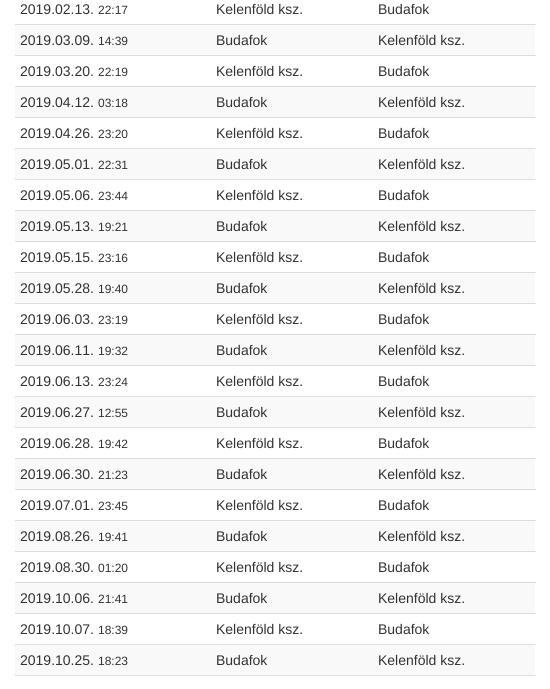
import math
import cairo



def draw(context):
    context.set_source_rgb(1, 1, 1)
    context.paint()
    context.set_source_rgb(249 / 255, 249 / 255, 249 / 255)
    context.rectangle(15, 25, 520, 30)
    context.fill()
    context.set_source_rgb(221 / 255, 221 / 255, 221 / 255)
    context.rectangle(15, 24, 521, 1)
    context.fill()
    context.rectangle(15, 55, 521, 1)
    context.fill()
    context.set_source_rgb(249 / 255, 249 / 255, 249 / 255)
    context.rectangle(15, 87, 520, 30)
    context.fill()
    context.set_source_rgb(221 / 255, 221 / 255, 221 / 255)
    context.rectangle(15, 86, 521, 1)
    context.fill()
    context.rectangle(15, 117, 521, 1)
    context.fill()
    context.set_source_rgb(249 / 255, 249 / 255, 249 / 255)
    context.rectangle(15, 149, 520, 30)
    context.fill()
    context.set_source_rgb(221 / 255, 221 / 255, 221 / 255)
    context.rectangle(15, 148, 521, 1)
    context.fill()
    context.rectangle(15, 179, 521, 1)
    context.fill()
    context.set_source_rgb(249 / 255, 249 / 255, 249 / 255)
    context.rectangle(15, 211, 520, 30)
    context.fill()
    context.set_source_rgb(221 / 255, 221 / 255, 221 / 255)
    context.rectangle(15, 210, 521, 1)
    context.fill()
    context.rectangle(15, 241, 521, 1)
    context.fill()
    context.set_source_rgb(249 / 255, 249 / 255, 249 / 255)
    context.rectangle(15, 273, 520, 30)
    context.fill()
    context.set_source_rgb(221 / 255, 221 / 255, 221 / 255)
    context.rectangle(15, 272, 521, 1)
    context.fill()
    context.rectangle(15, 303, 521, 1)
    context.fill()
    context.set_source_rgb(249 / 255, 249 / 255, 249 / 255)
    context.rectangle(15, 335, 520, 30)
    context.fill()
    context.set_source_rgb(221 / 255, 221 / 255, 221 / 255)
    context.rectangle(15, 334, 521, 1)
    context.fill()
    context.rectangle(15, 365, 521, 1)
    context.fill()
    context.set_source_rgb(249 / 255, 249 / 255, 249 / 255)
    context.rectangle(15, 397, 520, 30)
    context.fill()
    context.set_source_rgb(221 / 255, 221 / 255, 221 / 255)
    context.rectangle(15, 396, 521, 1)
    context.fill()
    context.rectangle(15, 427, 521, 1)
    context.fill()
    context.set_source_rgb(249 / 255, 249 / 255, 249 / 255)
    context.rectangle(15, 459, 520, 30)
    context.fill()
    context.set_source_rgb(221 / 255, 221 / 255, 221 / 255)
    context.rectangle(15, 458, 521, 1)
    context.fill()
    context.rectangle(15, 489, 521, 1)
    context.fill()
    context.set_source_rgb(249 / 255, 249 / 255, 249 / 255)
    context.rectangle(15, 521, 520, 30)
    context.fill()
    context.set_source_rgb(221 / 255, 221 / 255, 221 / 255)
    context.rectangle(15, 520, 521, 1)
    context.fill()
    context.rectangle(15, 551, 521, 1)
    context.fill()
    context.set_source_rgb(249 / 255, 249 / 255, 249 / 255)
    context.rectangle(15, 583, 520, 30)
    context.fill()
    context.set_source_rgb(221 / 255, 221 / 255, 221 / 255)
    context.rectangle(15, 582, 521, 1)
    context.fill()
    context.rectangle(15, 613, 521, 1)
    context.fill()
    context.set_source_rgb(249 / 255, 249 / 255, 249 / 255)
    context.rectangle(15, 645, 520, 30)
    context.fill()
    context.set_source_rgb(221 / 255, 221 / 255, 221 / 255)
    context.rectangle(15, 644, 521, 1)
    context.fill()
    context.rectangle(15, 675, 521, 1)
    context.fill()
    context.select_font_face("Liberation Sans")
    context.set_font_size(14)
    context.set_source_rgb(51 / 255, 51 / 255, 51 / 255)
    context.move_to(20, 14)
    context.show_text("2019.02.13.")
    context.set_font_size(12)
    context.move_to(98, 14)
    context.show_text("22:17")
    context.set_font_size(14)
    context.move_to(216, 14)
    context.show_text("Kelenföld ksz.")
    context.move_to(378, 14)
    context.show_text("Budafok")
    context.move_to(20, 45)
    context.show_text("2019.03.09.")
    context.set_font_size(12)
    context.move_to(98, 45)
    context.show_text("14:39")
    context.set_font_size(14)
    context.move_to(216, 45)
    context.show_text("Budafok")
    context.move_to(378, 45)
    context.show_text("Kelenföld ksz.")
    context.move_to(20, 76)
    context.show_text("2019.03.20.")
    context.set_font_size(12)
    context.move_to(98, 76)
    context.show_text("22:19")
    context.set_font_size(14)
    context.move_to(216, 76)
    context.show_text("Kelenföld ksz.")
    context.move_to(378, 76)
    context.show_text("Budafok")
    context.move_to(20, 107)
    context.show_text("2019.04.12.")
    context.set_font_size(12)
    context.move_to(98, 107)
    context.show_text("03:18")
    context.set_font_size(14)
    context.move_to(216, 107)
    context.show_text("Budafok")
    context.move_to(378, 107)
    context.show_text("Kelenföld ksz.")
    context.move_to(20, 138)
    context.show_text("2019.04.26.")
    context.set_font_size(12)
    context.move_to(98, 138)
    context.show_text("23:20")
    context.set_font_size(14)
    context.move_to(216, 138)
    context.show_text("Kelenföld ksz.")
    context.move_to(378, 138)
    context.show_text("Budafok")
    context.move_to(20, 169)
    context.show_text("2019.05.01.")
    context.set_font_size(12)
    context.move_to(98, 169)
    context.show_text("22:31")
    context.set_font_size(14)
    context.move_to(216, 169)
    context.show_text("Budafok")
    context.move_to(378, 169)
    context.show_text("Kelenföld ksz.")
    context.move_to(20, 200)
    context.show_text("2019.05.06.")
    context.set_font_size(12)
    context.move_to(98, 200)
    context.show_text("23:44")
    context.set_font_size(14)
    context.move_to(216, 200)
    context.show_text("Kelenföld ksz.")
    context.move_to(378, 200)
    context.show_text("Budafok")
    context.move_to(20, 231)
    context.show_text("2019.05.13.")
    context.set_font_size(12)
    context.move_to(98, 231)
    context.show_text("19:21")
    context.set_font_size(14)
    context.move_to(216, 231)
    context.show_text("Budafok")
    context.move_to(378, 231)
    context.show_text("Kelenföld ksz.")
    context.move_to(20, 262)
    context.show_text("2019.05.15.")
    context.set_font_size(12)
    context.move_to(98, 262)
    context.show_text("23:16")
    context.set_font_size(14)
    context.move_to(216, 262)
    context.show_text("Kelenföld ksz.")
    context.move_to(378, 262)
    context.show_text("Budafok")
    context.move_to(20, 293)
    context.show_text("2019.05.28.")
    context.set_font_size(12)
    context.move_to(98, 293)
    context.show_text("19:40")
    context.set_font_size(14)
    context.move_to(216, 293)
    context.show_text("Budafok")
    context.move_to(378, 293)
    context.show_text("Kelenföld ksz.")
    context.move_to(20, 324)
    context.show_text("2019.06.03.")
    context.set_font_size(12)
    context.move_to(98, 324)
    context.show_text("23:19")
    context.set_font_size(14)
    context.move_to(216, 324)
    context.show_text("Kelenföld ksz.")
    context.move_to(378, 324)
    context.show_text("Budafok")
    context.move_to(20, 355)
    context.show_text("2019.06.11.")
    context.set_font_size(12)
    context.move_to(98, 355)
    context.show_text("19:32")
    context.set_font_size(14)
    context.move_to(216, 355)
    context.show_text("Budafok")
    context.move_to(378, 355)
    context.show_text("Kelenföld ksz.")
    context.move_to(20, 386)
    context.show_text("2019.06.13.")
    context.set_font_size(12)
    context.move_to(98, 386)
    context.show_text("23:24")
    context.set_font_size(14)
    context.move_to(216, 386)
    context.show_text("Kelenföld ksz.")
    context.move_to(378, 386)
    context.show_text("Budafok")
    context.move_to(20, 417)
    context.show_text("2019.06.27.")
    context.set_font_size(12)
    context.move_to(98, 417)
    context.show_text("12:55")
    context.set_font_size(14)
    context.move_to(216, 417)
    context.show_text("Budafok")
    context.move_to(378, 417)
    context.show_text("Kelenföld ksz.")
    context.move_to(20, 448)
    context.show_text("2019.06.28.")
    context.set_font_size(12)
    context.move_to(98, 448)
    context.show_text("19:42")
    context.set_font_size(14)
    context.move_to(216, 448)
    context.show_text("Kelenföld ksz.")
    context.move_to(378, 448)
    context.show_text("Budafok")
    context.move_to(20, 479)
    context.show_text("2019.06.30.")
    context.set_font_size(12)
    context.move_to(98, 479)
    context.show_text("21:23")
    context.set_font_size(14)
    context.move_to(216, 479)
    context.show_text("Budafok")
    context.move_to(378, 479)
    context.show_text("Kelenföld ksz.")
    context.move_to(20, 510)
    context.show_text("2019.07.01.")
    context.set_font_size(12)
    context.move_to(98, 510)
    context.show_text("23:45")
    context.set_font_size(14)
    context.move_to(216, 510)
    context.show_text("Kelenföld ksz.")
    context.move_to(378, 510)
    context.show_text("Budafok")
    context.move_to(20, 541)
    context.show_text("2019.08.26.")
    context.set_font_size(12)
    context.move_to(98, 541)
    context.show_text("19:41")
    context.set_font_size(14)
    context.move_to(216, 541)
    context.show_text("Budafok")
    context.move_to(378, 541)
    context.show_text("Kelenföld ksz.")
    context.move_to(20, 572)
    context.show_text("2019.08.30.")
    context.set_font_size(12)
    context.move_to(98, 572)
    context.show_text("01:20")
    context.set_font_size(14)
    context.move_to(216, 572)
    context.show_text("Kelenföld ksz.")
    context.move_to(378, 572)
    context.show_text("Budafok")
    context.move_to(20, 603)
    context.show_text("2019.10.06.")
    context.set_font_size(12)
    context.move_to(98, 603)
    context.show_text("21:41")
    context.set_font_size(14)
    context.move_to(216, 603)
    context.show_text("Budafok")
    context.move_to(378, 603)
    context.show_text("Kelenföld ksz.")
    context.move_to(20, 634)
    context.show_text("2019.10.07.")
    context.set_font_size(12)
    context.move_to(98, 634)
    context.show_text("18:39")
    context.set_font_size(14)
    context.move_to(216, 634)
    context.show_text("Kelenföld ksz.")
    context.move_to(378, 634)
    context.show_text("Budafok")
    context.move_to(20, 665)
    context.show_text("2019.10.25.")
    context.set_font_size(12)
    context.move_to(98, 665)
    context.show_text("18:23")
    context.set_font_size(14)
    context.move_to(216, 665)
    context.show_text("Budafok")
    context.move_to(378, 665)
    context.show_text("Kelenföld ksz.")


surface = cairo.ImageSurface(cairo.Format.RGB24, 550, 689)
context = cairo.Context(surface)
options = cairo.FontOptions()
options.set_hint_metrics(cairo.HintMetrics.OFF)
options.set_hint_style(cairo.HintStyle.NONE)
context.set_font_options(options)
context.set_miter_limit(4)
draw(context)
surface.write_to_png("out.png")
